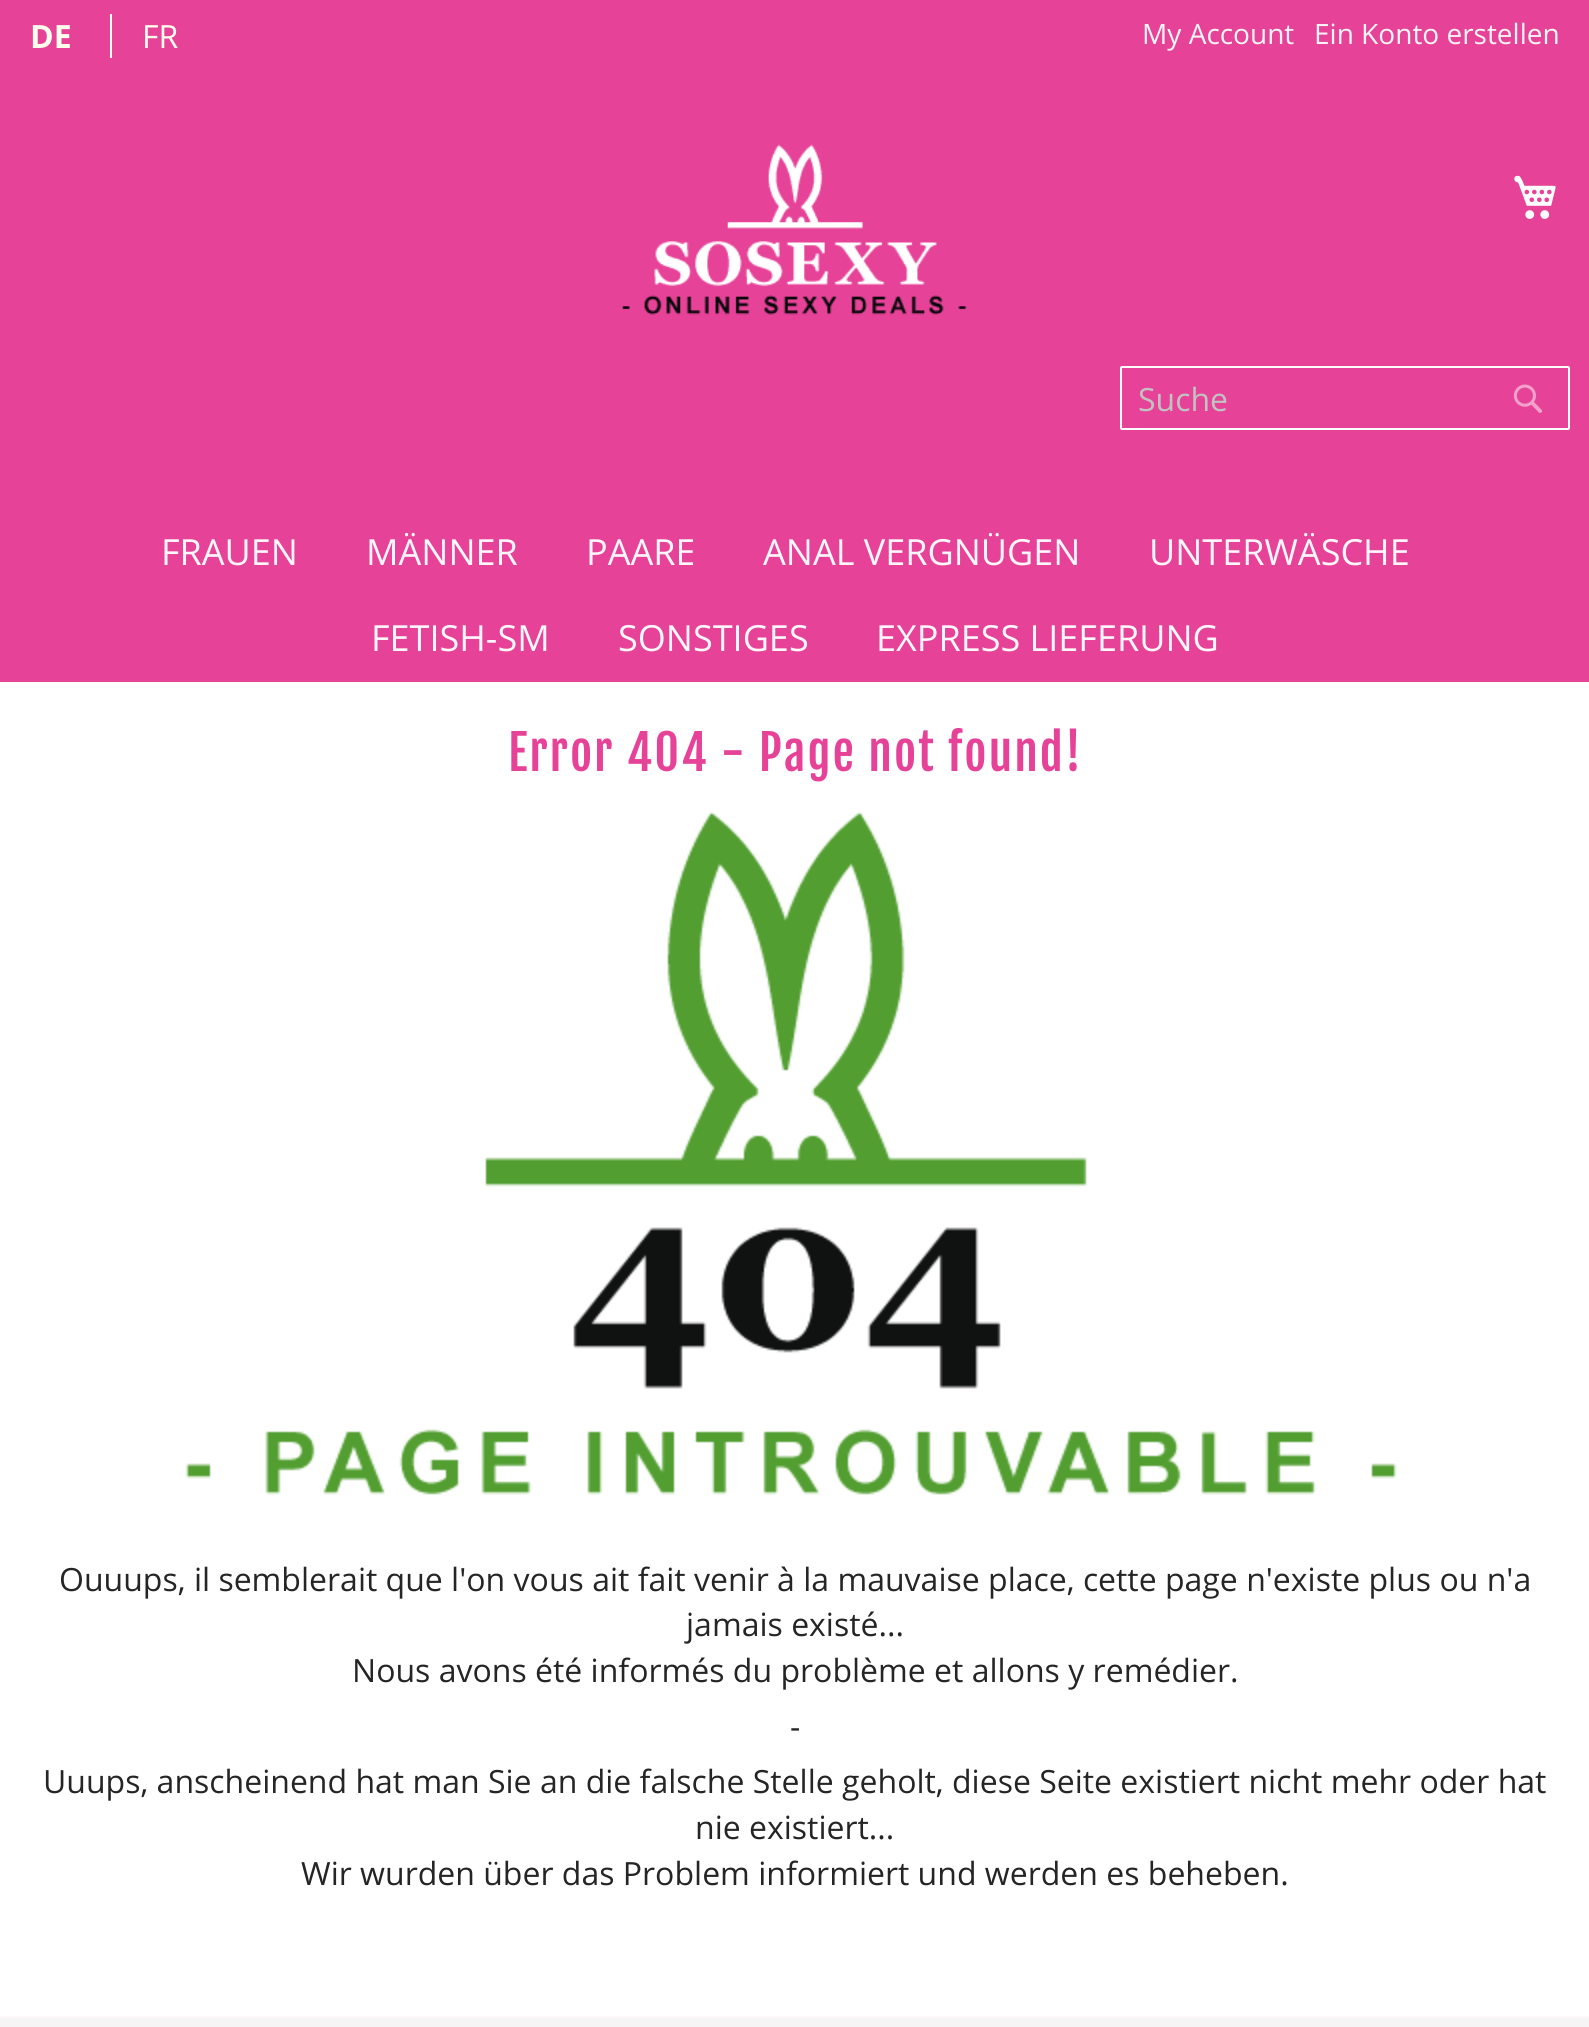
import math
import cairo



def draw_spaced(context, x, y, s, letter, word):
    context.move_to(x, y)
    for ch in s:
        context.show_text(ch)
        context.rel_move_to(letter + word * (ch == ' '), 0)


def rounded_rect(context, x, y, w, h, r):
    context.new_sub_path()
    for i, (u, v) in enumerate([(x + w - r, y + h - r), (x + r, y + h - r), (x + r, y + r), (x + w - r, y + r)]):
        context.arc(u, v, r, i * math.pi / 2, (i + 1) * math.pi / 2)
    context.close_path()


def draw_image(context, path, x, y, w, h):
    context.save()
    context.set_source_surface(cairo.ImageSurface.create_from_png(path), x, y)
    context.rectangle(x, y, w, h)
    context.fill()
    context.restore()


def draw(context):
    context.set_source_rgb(1, 1, 1)
    context.paint()
    context.set_source_rgb(230 / 255, 66 / 255, 152 / 255)
    context.rectangle(0, 0, 1589, 682)
    context.fill()
    context.set_source_rgb(1, 1, 238 / 255)
    context.rectangle(110, 14, 2, 44)
    context.fill()
    draw_image(context, "images/1.png", 622, 144, 345, 171)
    draw_image(context, "images/2.png", 1514, 175, 42, 44)
    rounded_rect(context, 1121, 367, 448, 62, 1)
    context.set_source_rgb(1, 1, 1)
    context.stroke()
    draw_image(context, "images/3.png", 1513, 384, 30, 29)
    draw_image(context, "images/4.png", 185, 811, 1212, 684)
    context.set_source_rgb(246 / 255, 244 / 255, 244 / 255)
    context.rectangle(0, 2018, 1589, 9)
    context.fill()
    context.set_source_rgb(1, 247 / 255, 252 / 255)
    context.rectangle(0, 2016, 1589, 2)
    context.fill()
    context.select_font_face("Open Sans", cairo.FontSlant.NORMAL, cairo.FontWeight.BOLD)
    context.set_font_size(32)
    context.set_source_rgb(1, 1, 238 / 255)
    context.move_to(30, 48)
    context.show_text("DE")
    context.select_font_face("Open Sans")
    context.move_to(142, 48)
    context.show_text("FR")
    context.set_font_size(28)
    context.set_source_rgb(246 / 255, 244 / 255, 244 / 255)
    context.move_to(1142, 44)
    context.show_text("My Account")
    context.move_to(1314, 44)
    context.show_text("Ein Konto erstellen")
    context.set_font_size(32)
    context.set_source_rgb(194 / 255, 194 / 255, 194 / 255)
    context.move_to(1138, 411)
    context.show_text("Suche")
    context.set_font_size(36)
    context.set_source_rgb(1, 247 / 255, 252 / 255)
    context.move_to(161, 565)
    context.show_text("FRAUEN")
    context.move_to(366, 565)
    context.show_text("MÄNNER")
    context.move_to(586, 565)
    context.show_text("PAARE")
    context.move_to(763, 565)
    context.show_text("ANAL VERGNÜGEN")
    context.move_to(1149, 565)
    context.show_text("UNTERWÄSCHE")
    context.move_to(371, 651)
    context.show_text("FETISH-SM")
    context.move_to(618, 651)
    context.show_text("SONSTIGES")
    context.move_to(876, 651)
    context.show_text("EXPRESS LIEFERUNG")
    context.select_font_face("Fjalla One")
    context.set_font_size(48)
    context.set_source_rgb(230 / 255, 66 / 255, 152 / 255)
    draw_spaced(context, 508, 771, "Error 404 - Page not found!", 2, 0)
    context.select_font_face("Open Sans")
    context.set_font_size(32)
    context.set_source_rgb(37 / 255, 37 / 255, 37 / 255)
    context.move_to(59, 1591)
    context.show_text("Ouuups, il semblerait que l'on vous ait fait venir à la mauvaise place, cette page n'existe plus ou n'a")
    context.move_to(686, 1636)
    context.show_text("jamais existé...")
    context.move_to(352, 1682)
    context.show_text("Nous avons été informés du problème et allons y remédier.")
    context.move_to(790, 1738)
    context.show_text("-")
    context.move_to(43, 1793)
    context.show_text("Uuups, anscheinend hat man Sie an die falsche Stelle geholt, diese Seite existiert nicht mehr oder hat")
    context.move_to(695, 1839)
    context.show_text("nie existiert...")
    context.move_to(301, 1885)
    context.show_text("Wir wurden über das Problem informiert und werden es beheben.")


surface = cairo.ImageSurface(cairo.Format.RGB24, 1589, 2027)
context = cairo.Context(surface)
options = cairo.FontOptions()
options.set_hint_metrics(cairo.HintMetrics.OFF)
options.set_hint_style(cairo.HintStyle.NONE)
context.set_font_options(options)
context.set_miter_limit(4)
draw(context)
surface.write_to_png("out.png")
